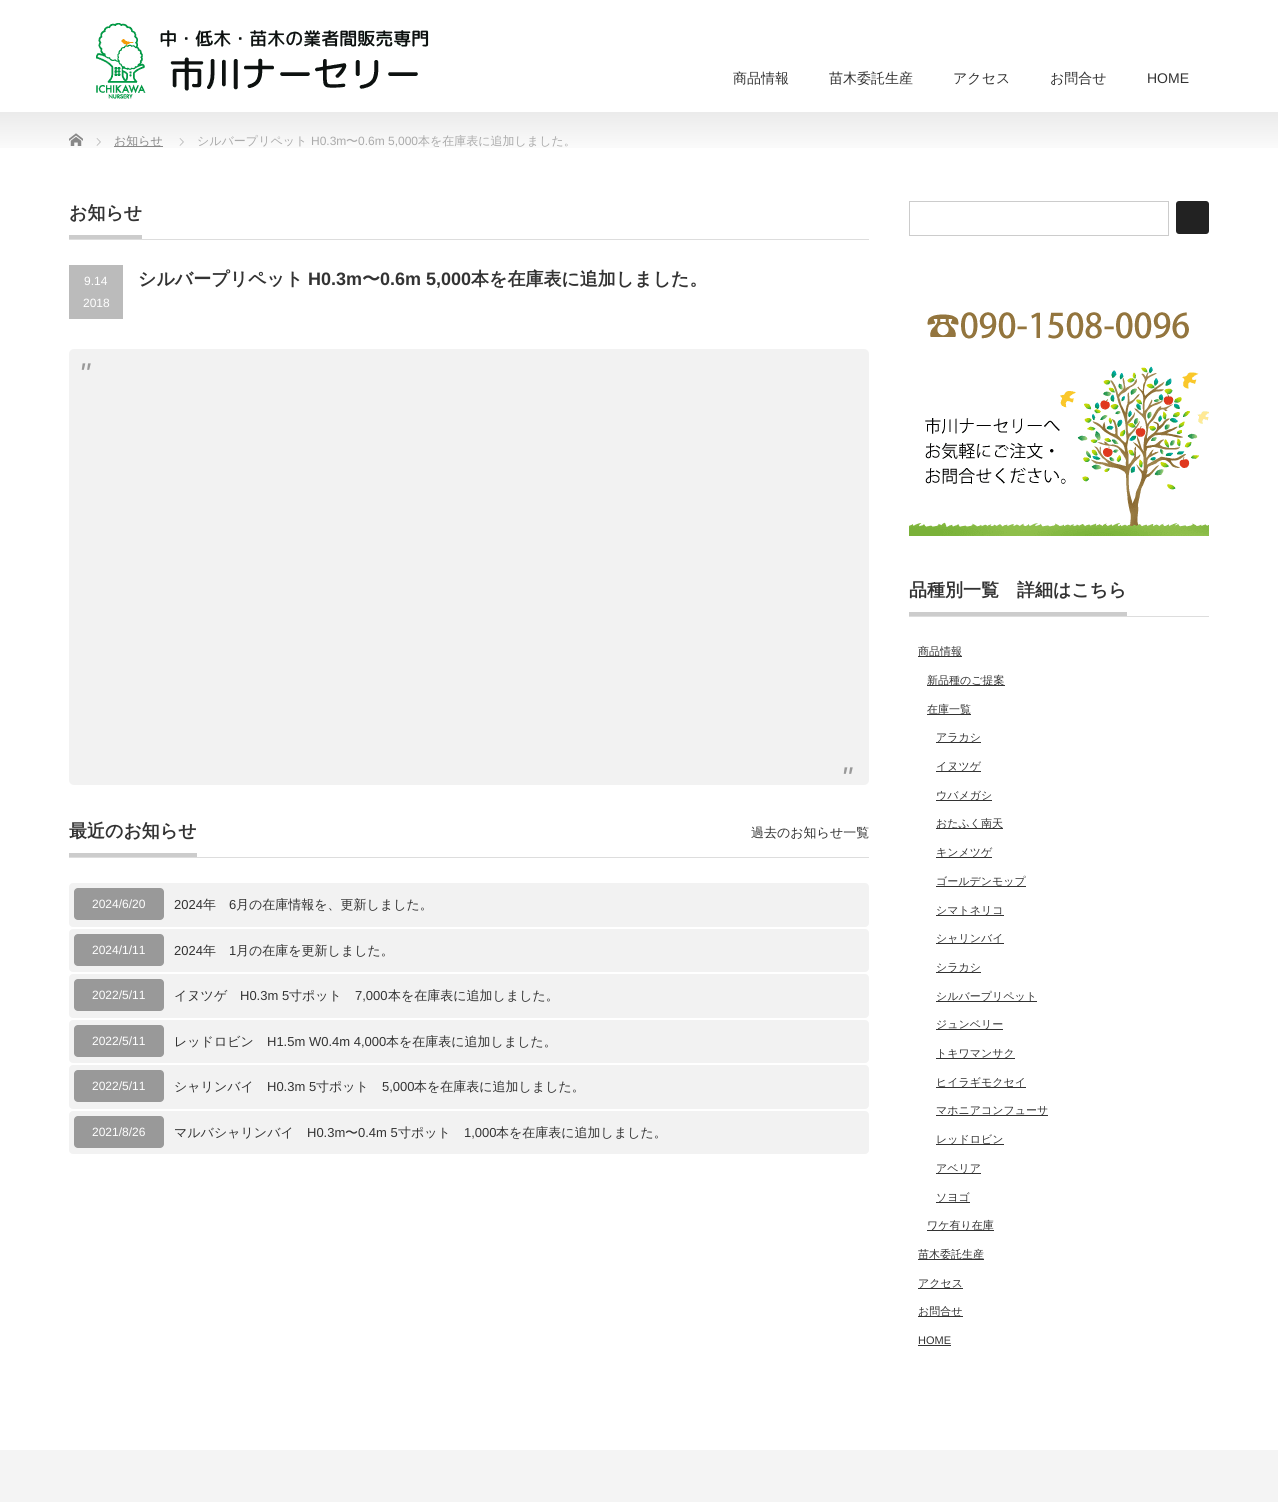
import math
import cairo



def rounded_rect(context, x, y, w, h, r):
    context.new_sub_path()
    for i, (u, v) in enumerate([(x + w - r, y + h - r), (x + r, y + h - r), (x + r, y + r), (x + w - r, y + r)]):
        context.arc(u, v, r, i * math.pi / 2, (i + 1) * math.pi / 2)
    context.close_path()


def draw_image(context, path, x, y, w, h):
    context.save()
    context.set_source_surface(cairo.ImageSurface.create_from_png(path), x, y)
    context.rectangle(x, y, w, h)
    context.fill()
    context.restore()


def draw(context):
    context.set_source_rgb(1, 1, 1)
    context.paint()
    draw_image(context, "images/1.png", 96, 23, 333, 76)
    draw_image(context, "images/2.png", 0, 112, 1278, 36)
    draw_image(context, "images/3.png", 69, 133, 14, 13)
    draw_image(context, "images/4.png", 96, 138, 5, 8)
    context.set_source_rgb(136 / 255, 136 / 255, 136 / 255)
    context.rectangle(114, 146, 49, 1)
    context.fill()
    draw_image(context, "images/4.png", 179, 138, 5, 8)
    context.set_source_rgb(221 / 255, 221 / 255, 221 / 255)
    context.rectangle(69, 239, 800, 1)
    context.fill()
    context.set_source_rgb(204 / 255, 204 / 255, 204 / 255)
    context.rectangle(69, 235, 73, 4)
    context.fill()
    context.set_source_rgb(187 / 255, 187 / 255, 187 / 255)
    context.rectangle(69, 265, 54, 54)
    context.fill()
    context.set_source_rgb(242 / 255, 242 / 255, 242 / 255)
    rounded_rect(context, 69, 349, 800, 436, 5)
    context.fill()
    context.set_source_rgb(221 / 255, 221 / 255, 221 / 255)
    context.rectangle(69, 857, 800, 1)
    context.fill()
    context.set_source_rgb(204 / 255, 204 / 255, 204 / 255)
    context.rectangle(69, 853, 128, 4)
    context.fill()
    context.set_source_rgb(242 / 255, 242 / 255, 242 / 255)
    rounded_rect(context, 69, 883, 800, 44, 4)
    context.fill()
    context.set_source_rgb(153 / 255, 153 / 255, 153 / 255)
    rounded_rect(context, 74, 888, 90, 32, 4)
    context.fill()
    context.set_source_rgb(242 / 255, 242 / 255, 242 / 255)
    rounded_rect(context, 69, 929, 800, 43, 4)
    context.fill()
    context.set_source_rgb(153 / 255, 153 / 255, 153 / 255)
    rounded_rect(context, 74, 934, 90, 32, 4)
    context.fill()
    context.set_source_rgb(242 / 255, 242 / 255, 242 / 255)
    rounded_rect(context, 69, 974, 800, 44, 4)
    context.fill()
    context.set_source_rgb(153 / 255, 153 / 255, 153 / 255)
    rounded_rect(context, 74, 979, 90, 32, 4)
    context.fill()
    context.set_source_rgb(242 / 255, 242 / 255, 242 / 255)
    rounded_rect(context, 69, 1020, 800, 43, 4)
    context.fill()
    context.set_source_rgb(153 / 255, 153 / 255, 153 / 255)
    rounded_rect(context, 74, 1025, 90, 32, 4)
    context.fill()
    context.set_source_rgb(242 / 255, 242 / 255, 242 / 255)
    rounded_rect(context, 69, 1065, 800, 44, 4)
    context.fill()
    context.set_source_rgb(153 / 255, 153 / 255, 153 / 255)
    rounded_rect(context, 74, 1070, 90, 32, 4)
    context.fill()
    context.set_source_rgb(242 / 255, 242 / 255, 242 / 255)
    rounded_rect(context, 69, 1111, 800, 43, 4)
    context.fill()
    context.set_source_rgb(153 / 255, 153 / 255, 153 / 255)
    rounded_rect(context, 74, 1116, 90, 32, 4)
    context.fill()
    context.rectangle(909.5, 201.5, 259, 34)
    context.set_source_rgb(204 / 255, 204 / 255, 204 / 255)
    context.set_line_width(1)
    context.stroke()
    context.set_source_rgb(34 / 255, 34 / 255, 34 / 255)
    rounded_rect(context, 1176, 201, 33, 33, 3)
    context.fill()
    draw_image(context, "images/5.png", 909, 312, 300, 224)
    context.set_source_rgb(221 / 255, 221 / 255, 221 / 255)
    context.rectangle(909, 616, 300, 1)
    context.fill()
    context.set_source_rgb(204 / 255, 204 / 255, 204 / 255)
    context.rectangle(909, 612, 218, 4)
    context.fill()
    context.set_source_rgb(51 / 255, 51 / 255, 51 / 255)
    context.rectangle(918, 656, 44, 1)
    context.fill()
    context.rectangle(927, 685, 78, 1)
    context.fill()
    context.rectangle(927, 714, 44, 1)
    context.fill()
    context.rectangle(936, 742, 45, 1)
    context.fill()
    context.rectangle(936, 771, 45, 1)
    context.fill()
    context.rectangle(936, 800, 56, 1)
    context.fill()
    context.rectangle(936, 828, 67, 1)
    context.fill()
    context.rectangle(936, 857, 56, 1)
    context.fill()
    context.rectangle(936, 886, 90, 1)
    context.fill()
    context.rectangle(936, 915, 68, 1)
    context.fill()
    context.rectangle(936, 943, 68, 1)
    context.fill()
    context.rectangle(936, 972, 45, 1)
    context.fill()
    context.rectangle(936, 1001, 101, 1)
    context.fill()
    context.rectangle(936, 1029, 67, 1)
    context.fill()
    context.rectangle(936, 1058, 79, 1)
    context.fill()
    context.rectangle(936, 1087, 90, 1)
    context.fill()
    context.rectangle(936, 1115, 112, 1)
    context.fill()
    context.rectangle(936, 1144, 68, 1)
    context.fill()
    context.rectangle(936, 1173, 45, 1)
    context.fill()
    context.rectangle(936, 1202, 34, 1)
    context.fill()
    context.rectangle(927, 1230, 67, 1)
    context.fill()
    context.rectangle(918, 1259, 66, 1)
    context.fill()
    context.rectangle(918, 1288, 45, 1)
    context.fill()
    context.rectangle(918, 1316, 45, 1)
    context.fill()
    context.rectangle(918, 1345, 33, 1)
    context.fill()
    context.set_source_rgb(244 / 255, 244 / 255, 244 / 255)
    context.rectangle(0, 1450, 1278, 52)
    context.fill()
    context.select_font_face("WenQuanYi Zen Hei Medium")
    context.set_font_size(14)
    context.set_source_rgb(51 / 255, 51 / 255, 51 / 255)
    context.move_to(733, 83)
    context.show_text("商品情報")
    context.move_to(829, 83)
    context.show_text("苗木委託生産")
    context.move_to(953, 83)
    context.show_text("アクセス")
    context.move_to(1050, 83)
    context.show_text("お問合せ")
    context.select_font_face("Liberation Sans")
    context.move_to(1147, 83)
    context.show_text("HOME")
    context.select_font_face("WenQuanYi Zen Hei Medium")
    context.set_font_size(12)
    context.set_source_rgb(136 / 255, 136 / 255, 136 / 255)
    context.move_to(114, 145)
    context.show_text("お知らせ")
    context.set_source_rgb(170 / 255, 170 / 255, 170 / 255)
    context.move_to(197, 145)
    context.show_text("シルバープリペット")
    context.select_font_face("Liberation Sans")
    context.move_to(311, 145)
    context.show_text("H0.3m")
    context.select_font_face("WenQuanYi Zen Hei Medium")
    context.move_to(346, 145)
    context.show_text("〜")
    context.select_font_face("Liberation Sans")
    context.move_to(358, 145)
    context.show_text("0.6m 5,000")
    context.select_font_face("WenQuanYi Zen Hei Medium")
    context.move_to(418, 145)
    context.show_text("本を在庫表に追加しました。")
    context.select_font_face("WenQuanYi Zen Hei", cairo.FontSlant.NORMAL, cairo.FontWeight.BOLD)
    context.set_font_size(18)
    context.set_source_rgb(51 / 255, 51 / 255, 51 / 255)
    context.move_to(69, 219)
    context.show_text("お知らせ")
    context.select_font_face("Liberation Sans")
    context.set_font_size(12)
    context.set_source_rgb(1, 1, 1)
    context.move_to(84, 285)
    context.show_text("9.14")
    context.move_to(83, 307)
    context.show_text("2018")
    context.select_font_face("WenQuanYi Zen Hei", cairo.FontSlant.NORMAL, cairo.FontWeight.BOLD)
    context.set_font_size(18)
    context.set_source_rgb(51 / 255, 51 / 255, 51 / 255)
    context.move_to(138, 285)
    context.show_text("シルバープリペット")
    context.select_font_face("Liberation Sans", cairo.FontSlant.NORMAL, cairo.FontWeight.BOLD)
    context.move_to(308, 285)
    context.show_text("H0.3m")
    context.select_font_face("WenQuanYi Zen Hei", cairo.FontSlant.NORMAL, cairo.FontWeight.BOLD)
    context.move_to(362, 285)
    context.show_text("〜")
    context.select_font_face("Liberation Sans", cairo.FontSlant.NORMAL, cairo.FontWeight.BOLD)
    context.move_to(380, 285)
    context.show_text("0.6m 5,000")
    context.select_font_face("WenQuanYi Zen Hei", cairo.FontSlant.NORMAL, cairo.FontWeight.BOLD)
    context.move_to(471, 285)
    context.show_text("本を在庫表に追加しました。")
    context.select_font_face("Liberation Sans", cairo.FontSlant.ITALIC)
    context.set_font_size(30)
    context.set_source_rgb(153 / 255, 153 / 255, 153 / 255)
    context.move_to(79, 384)
    context.show_text("\"")
    context.move_to(841, 788)
    context.show_text("\"")
    context.select_font_face("WenQuanYi Zen Hei", cairo.FontSlant.NORMAL, cairo.FontWeight.BOLD)
    context.set_font_size(18)
    context.set_source_rgb(51 / 255, 51 / 255, 51 / 255)
    context.move_to(69, 837)
    context.show_text("最近のお知らせ")
    context.select_font_face("WenQuanYi Zen Hei Medium")
    context.set_font_size(13)
    context.move_to(751, 837)
    context.show_text("過去のお知らせ一覧")
    context.select_font_face("Liberation Sans")
    context.set_font_size(12)
    context.set_source_rgb(1, 1, 1)
    context.move_to(92, 908)
    context.show_text("2024/6/20")
    context.set_font_size(13)
    context.set_source_rgb(51 / 255, 51 / 255, 51 / 255)
    context.move_to(174, 909)
    context.show_text("2024")
    context.select_font_face("WenQuanYi Zen Hei Medium")
    context.move_to(203, 909)
    context.show_text("年")
    context.select_font_face("Liberation Sans")
    context.move_to(229, 909)
    context.show_text("6")
    context.select_font_face("WenQuanYi Zen Hei Medium")
    context.move_to(236, 909)
    context.show_text("月の在庫情報を、更新しました。")
    context.select_font_face("Liberation Sans")
    context.set_font_size(12)
    context.set_source_rgb(1, 1, 1)
    context.move_to(92, 954)
    context.show_text("2024/1/11")
    context.set_font_size(13)
    context.set_source_rgb(51 / 255, 51 / 255, 51 / 255)
    context.move_to(174, 955)
    context.show_text("2024")
    context.select_font_face("WenQuanYi Zen Hei Medium")
    context.move_to(203, 955)
    context.show_text("年")
    context.select_font_face("Liberation Sans")
    context.move_to(229, 955)
    context.show_text("1")
    context.select_font_face("WenQuanYi Zen Hei Medium")
    context.move_to(236, 955)
    context.show_text("月の在庫を更新しました。")
    context.select_font_face("Liberation Sans")
    context.set_font_size(12)
    context.set_source_rgb(1, 1, 1)
    context.move_to(92, 999)
    context.show_text("2022/5/11")
    context.select_font_face("WenQuanYi Zen Hei Medium")
    context.set_font_size(13)
    context.set_source_rgb(51 / 255, 51 / 255, 51 / 255)
    context.move_to(174, 1000)
    context.show_text("イヌツゲ")
    context.select_font_face("Liberation Sans")
    context.move_to(240, 1000)
    context.show_text("H0.3m 5")
    context.select_font_face("WenQuanYi Zen Hei Medium")
    context.move_to(289, 1000)
    context.show_text("寸ポット")
    context.select_font_face("Liberation Sans")
    context.move_to(355, 1000)
    context.show_text("7,000")
    context.select_font_face("WenQuanYi Zen Hei Medium")
    context.move_to(388, 1000)
    context.show_text("本を在庫表に追加しました。")
    context.select_font_face("Liberation Sans")
    context.set_font_size(12)
    context.set_source_rgb(1, 1, 1)
    context.move_to(92, 1045)
    context.show_text("2022/5/11")
    context.select_font_face("WenQuanYi Zen Hei Medium")
    context.set_font_size(13)
    context.set_source_rgb(51 / 255, 51 / 255, 51 / 255)
    context.move_to(174, 1046)
    context.show_text("レッドロビン")
    context.select_font_face("Liberation Sans")
    context.move_to(267, 1046)
    context.show_text("H1.5m W0.4m 4,000")
    context.select_font_face("WenQuanYi Zen Hei Medium")
    context.move_to(386, 1046)
    context.show_text("本を在庫表に追加しました。")
    context.select_font_face("Liberation Sans")
    context.set_font_size(12)
    context.set_source_rgb(1, 1, 1)
    context.move_to(92, 1090)
    context.show_text("2022/5/11")
    context.select_font_face("WenQuanYi Zen Hei Medium")
    context.set_font_size(13)
    context.set_source_rgb(51 / 255, 51 / 255, 51 / 255)
    context.move_to(174, 1091)
    context.show_text("シャリンバイ")
    context.select_font_face("Liberation Sans")
    context.move_to(267, 1091)
    context.show_text("H0.3m 5")
    context.select_font_face("WenQuanYi Zen Hei Medium")
    context.move_to(316, 1091)
    context.show_text("寸ポット")
    context.select_font_face("Liberation Sans")
    context.move_to(382, 1091)
    context.show_text("5,000")
    context.select_font_face("WenQuanYi Zen Hei Medium")
    context.move_to(414, 1091)
    context.show_text("本を在庫表に追加しました。")
    context.select_font_face("Liberation Sans")
    context.set_font_size(12)
    context.set_source_rgb(1, 1, 1)
    context.move_to(92, 1136)
    context.show_text("2021/8/26")
    context.select_font_face("WenQuanYi Zen Hei Medium")
    context.set_font_size(13)
    context.set_source_rgb(51 / 255, 51 / 255, 51 / 255)
    context.move_to(174, 1137)
    context.show_text("マルバシャリンバイ")
    context.select_font_face("Liberation Sans")
    context.move_to(307, 1137)
    context.show_text("H0.3m")
    context.select_font_face("WenQuanYi Zen Hei Medium")
    context.move_to(345, 1137)
    context.show_text("〜")
    context.select_font_face("Liberation Sans")
    context.move_to(358, 1137)
    context.show_text("0.4m 5")
    context.select_font_face("WenQuanYi Zen Hei Medium")
    context.move_to(398, 1137)
    context.show_text("寸ポット")
    context.select_font_face("Liberation Sans")
    context.move_to(464, 1137)
    context.show_text("1,000")
    context.select_font_face("WenQuanYi Zen Hei Medium")
    context.move_to(496, 1137)
    context.show_text("本を在庫表に追加しました。")
    context.select_font_face("WenQuanYi Zen Hei", cairo.FontSlant.NORMAL, cairo.FontWeight.BOLD)
    context.set_font_size(18)
    context.move_to(909, 596)
    context.show_text("品種別一覧　詳細はこちら")
    context.select_font_face("WenQuanYi Zen Hei Medium")
    context.set_font_size(11)
    context.move_to(918, 655)
    context.show_text("商品情報")
    context.move_to(927, 684)
    context.show_text("新品種のご提案")
    context.move_to(927, 713)
    context.show_text("在庫一覧")
    context.move_to(936, 741)
    context.show_text("アラカシ")
    context.move_to(936, 770)
    context.show_text("イヌツゲ")
    context.move_to(936, 799)
    context.show_text("ウバメガシ")
    context.move_to(936, 827)
    context.show_text("おたふく南天")
    context.move_to(936, 856)
    context.show_text("キンメツゲ")
    context.move_to(936, 885)
    context.show_text("ゴールデンモップ")
    context.move_to(936, 914)
    context.show_text("シマトネリコ")
    context.move_to(936, 942)
    context.show_text("シャリンバイ")
    context.move_to(936, 971)
    context.show_text("シラカシ")
    context.move_to(936, 1000)
    context.show_text("シルバープリペット")
    context.move_to(936, 1028)
    context.show_text("ジュンベリー")
    context.move_to(936, 1057)
    context.show_text("トキワマンサク")
    context.move_to(936, 1086)
    context.show_text("ヒイラギモクセイ")
    context.move_to(936, 1114)
    context.show_text("マホニアコンフューサ")
    context.move_to(936, 1143)
    context.show_text("レッドロビン")
    context.move_to(936, 1172)
    context.show_text("アベリア")
    context.move_to(936, 1201)
    context.show_text("ソヨゴ")
    context.move_to(927, 1229)
    context.show_text("ワケ有り在庫")
    context.move_to(918, 1258)
    context.show_text("苗木委託生産")
    context.move_to(918, 1287)
    context.show_text("アクセス")
    context.move_to(918, 1315)
    context.show_text("お問合せ")
    context.select_font_face("Liberation Sans")
    context.move_to(918, 1344)
    context.show_text("HOME")


surface = cairo.ImageSurface(cairo.Format.RGB24, 1278, 1502)
context = cairo.Context(surface)
options = cairo.FontOptions()
options.set_hint_metrics(cairo.HintMetrics.OFF)
options.set_hint_style(cairo.HintStyle.NONE)
context.set_font_options(options)
context.set_miter_limit(4)
draw(context)
surface.write_to_png("out.png")
